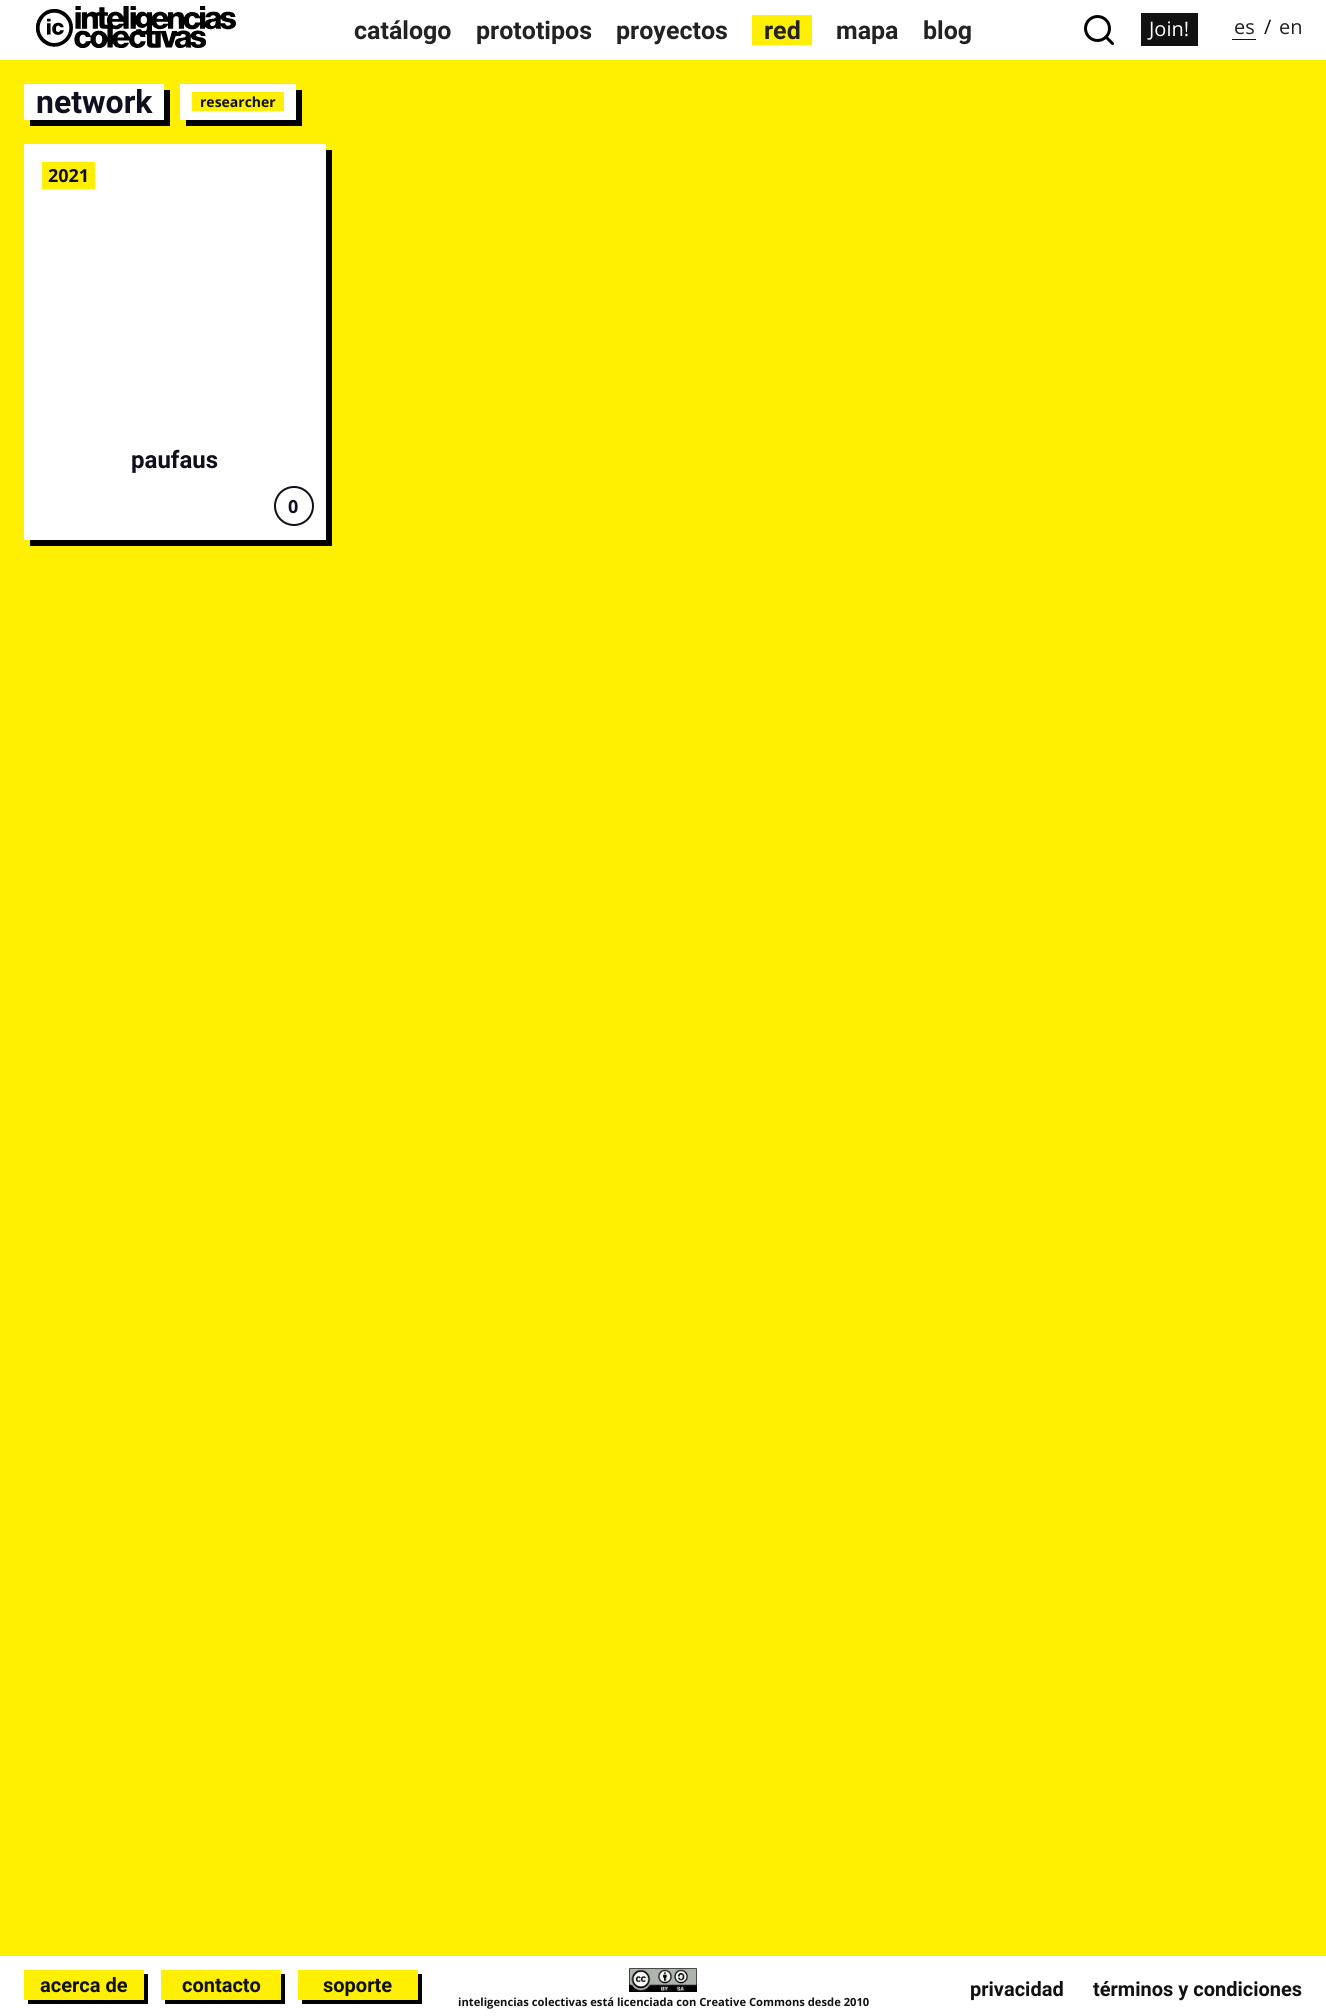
import math
import cairo



def draw_image(context, path, x, y, w, h):
    context.save()
    context.set_source_surface(cairo.ImageSurface.create_from_png(path), x, y)
    context.rectangle(x, y, w, h)
    context.fill()
    context.restore()


def draw(context):
    context.set_source_rgb(1, 1, 1)
    context.paint()
    draw_image(context, "images/1.png", 36, 6, 200, 42)
    context.set_source_rgb(1, 240 / 255, 1 / 255)
    context.rectangle(752, 15, 60, 30)
    context.fill()
    context.arc(1097.5, 28.5, 12, 0, 2 * math.pi)
    context.set_source_rgb(0, 0, 0)
    context.set_line_width(3)
    context.stroke()
    context.new_path()
    context.move_to(1112.5, 43.5)
    context.line_to(1106, 37)
    context.set_line_cap(cairo.LineCap.ROUND)
    context.set_line_join(cairo.LineJoin.ROUND)
    context.stroke()
    context.set_source_rgb(17 / 255, 17 / 255, 17 / 255)
    context.rectangle(1141, 13, 57, 33)
    context.fill()
    context.set_source_rgb(15 / 255, 15 / 255, 30 / 255)
    context.rectangle(1232, 39, 24, 1)
    context.fill()
    context.set_source_rgb(1, 240 / 255, 1 / 255)
    context.rectangle(0, 60, 1326, 1896)
    context.fill()
    context.set_source_rgb(0, 0, 0)
    context.new_path()
    context.move_to(30, 120)
    context.line_to(30, 126)
    context.line_to(170, 126)
    context.line_to(170, 90)
    context.line_to(164, 90)
    context.line_to(164, 120)
    context.close_path()
    context.fill()
    context.set_source_rgb(1, 1, 1)
    context.rectangle(24, 84, 140, 36)
    context.fill()
    context.set_source_rgb(0, 0, 0)
    context.new_path()
    context.move_to(186, 120)
    context.line_to(186, 126)
    context.line_to(302, 126)
    context.line_to(302, 90)
    context.line_to(296, 90)
    context.line_to(296, 120)
    context.close_path()
    context.fill()
    context.set_source_rgb(1, 1, 1)
    context.rectangle(180, 84, 116, 36)
    context.fill()
    context.set_source_rgb(1, 240 / 255, 1 / 255)
    context.rectangle(192, 92, 92, 19)
    context.fill()
    context.set_source_rgb(0, 0, 0)
    context.new_path()
    context.move_to(30, 540)
    context.line_to(30, 546)
    context.line_to(332, 546)
    context.line_to(332, 150)
    context.line_to(326, 150)
    context.line_to(326, 540)
    context.close_path()
    context.fill()
    context.set_source_rgb(1, 1, 1)
    context.rectangle(24, 144, 302, 396)
    context.fill()
    context.set_source_rgb(1, 240 / 255, 1 / 255)
    context.rectangle(42, 162, 53, 27)
    context.fill()
    context.arc(294, 506, 19, 0, 2 * math.pi)
    context.set_source_rgb(15 / 255, 15 / 255, 30 / 255)
    context.set_line_width(2)
    context.set_line_cap(cairo.LineCap.BUTT)
    context.set_line_join(cairo.LineJoin.MITER)
    context.stroke()
    context.set_source_rgb(0, 0, 0)
    context.new_path()
    context.move_to(28, 2000)
    context.line_to(28, 2004)
    context.line_to(148, 2004)
    context.line_to(148, 1974)
    context.line_to(144, 1974)
    context.line_to(144, 2000)
    context.close_path()
    context.fill()
    context.set_source_rgb(1, 240 / 255, 1 / 255)
    context.rectangle(24, 1970, 120, 30)
    context.fill()
    context.set_source_rgb(0, 0, 0)
    context.new_path()
    context.move_to(165, 2000)
    context.line_to(165, 2004)
    context.line_to(285, 2004)
    context.line_to(285, 1974)
    context.line_to(281, 1974)
    context.line_to(281, 2000)
    context.close_path()
    context.fill()
    context.set_source_rgb(1, 240 / 255, 1 / 255)
    context.rectangle(161, 1970, 120, 30)
    context.fill()
    context.set_source_rgb(0, 0, 0)
    context.new_path()
    context.move_to(302, 2000)
    context.line_to(302, 2004)
    context.line_to(422, 2004)
    context.line_to(422, 1974)
    context.line_to(418, 1974)
    context.line_to(418, 2000)
    context.close_path()
    context.fill()
    context.set_source_rgb(1, 240 / 255, 1 / 255)
    context.rectangle(298, 1970, 120, 30)
    context.fill()
    draw_image(context, "images/2.png", 629, 1968, 68, 24)
    context.select_font_face("Roboto", cairo.FontSlant.NORMAL, cairo.FontWeight.BOLD)
    context.set_font_size(25)
    context.set_source_rgb(34 / 255, 34 / 255, 34 / 255)
    context.move_to(354, 39)
    context.show_text("catálogo")
    context.move_to(476, 39)
    context.show_text("prototipos")
    context.move_to(616, 39)
    context.show_text("proyectos")
    context.move_to(764, 39)
    context.show_text("red")
    context.move_to(836, 39)
    context.show_text("mapa")
    context.move_to(923, 39)
    context.show_text("blog")
    context.select_font_face("Open Sans")
    context.set_font_size(20)
    context.set_source_rgb(1, 1, 1)
    context.move_to(1149, 36)
    context.show_text("Join!")
    context.set_source_rgb(34 / 255, 34 / 255, 34 / 255)
    context.move_to(1234, 34)
    context.show_text("es")
    context.set_source_rgb(15 / 255, 15 / 255, 30 / 255)
    context.move_to(1264, 34)
    context.show_text("/")
    context.set_source_rgb(34 / 255, 34 / 255, 34 / 255)
    context.move_to(1279, 34)
    context.show_text("en")
    context.select_font_face("Roboto", cairo.FontSlant.NORMAL, cairo.FontWeight.BOLD)
    context.set_font_size(32)
    context.set_source_rgb(15 / 255, 15 / 255, 30 / 255)
    context.move_to(36, 113)
    context.show_text("network")
    context.select_font_face("Open Sans", cairo.FontSlant.NORMAL, cairo.FontWeight.BOLD)
    context.set_font_size(14)
    context.move_to(200, 107)
    context.show_text("researcher")
    context.set_font_size(18)
    context.move_to(48, 182)
    context.show_text("2021")
    context.select_font_face("Roboto", cairo.FontSlant.NORMAL, cairo.FontWeight.BOLD)
    context.set_font_size(24)
    context.move_to(131, 468)
    context.show_text("paufaus")
    context.select_font_face("Open Sans", cairo.FontSlant.NORMAL, cairo.FontWeight.BOLD)
    context.set_font_size(18)
    context.move_to(288, 513)
    context.show_text("0")
    context.select_font_face("Roboto", cairo.FontSlant.NORMAL, cairo.FontWeight.BOLD)
    context.set_font_size(20)
    context.set_source_rgb(17 / 255, 17 / 255, 17 / 255)
    context.move_to(40, 1992)
    context.show_text("acerca de")
    context.move_to(182, 1992)
    context.show_text("contacto")
    context.move_to(323, 1992)
    context.show_text("soporte")
    context.move_to(970, 1996)
    context.show_text("privacidad")
    context.move_to(1093, 1996)
    context.show_text("términos y condiciones")
    context.select_font_face("Open Sans", cairo.FontSlant.NORMAL, cairo.FontWeight.BOLD)
    context.set_font_size(11.2)
    context.move_to(458, 2006)
    context.show_text("inteligencias colectivas está licenciada con Creative Commons desde 2010")


surface = cairo.ImageSurface(cairo.Format.RGB24, 1326, 2016)
context = cairo.Context(surface)
options = cairo.FontOptions()
options.set_hint_metrics(cairo.HintMetrics.OFF)
options.set_hint_style(cairo.HintStyle.NONE)
context.set_font_options(options)
context.set_miter_limit(4)
draw(context)
surface.write_to_png("out.png")
